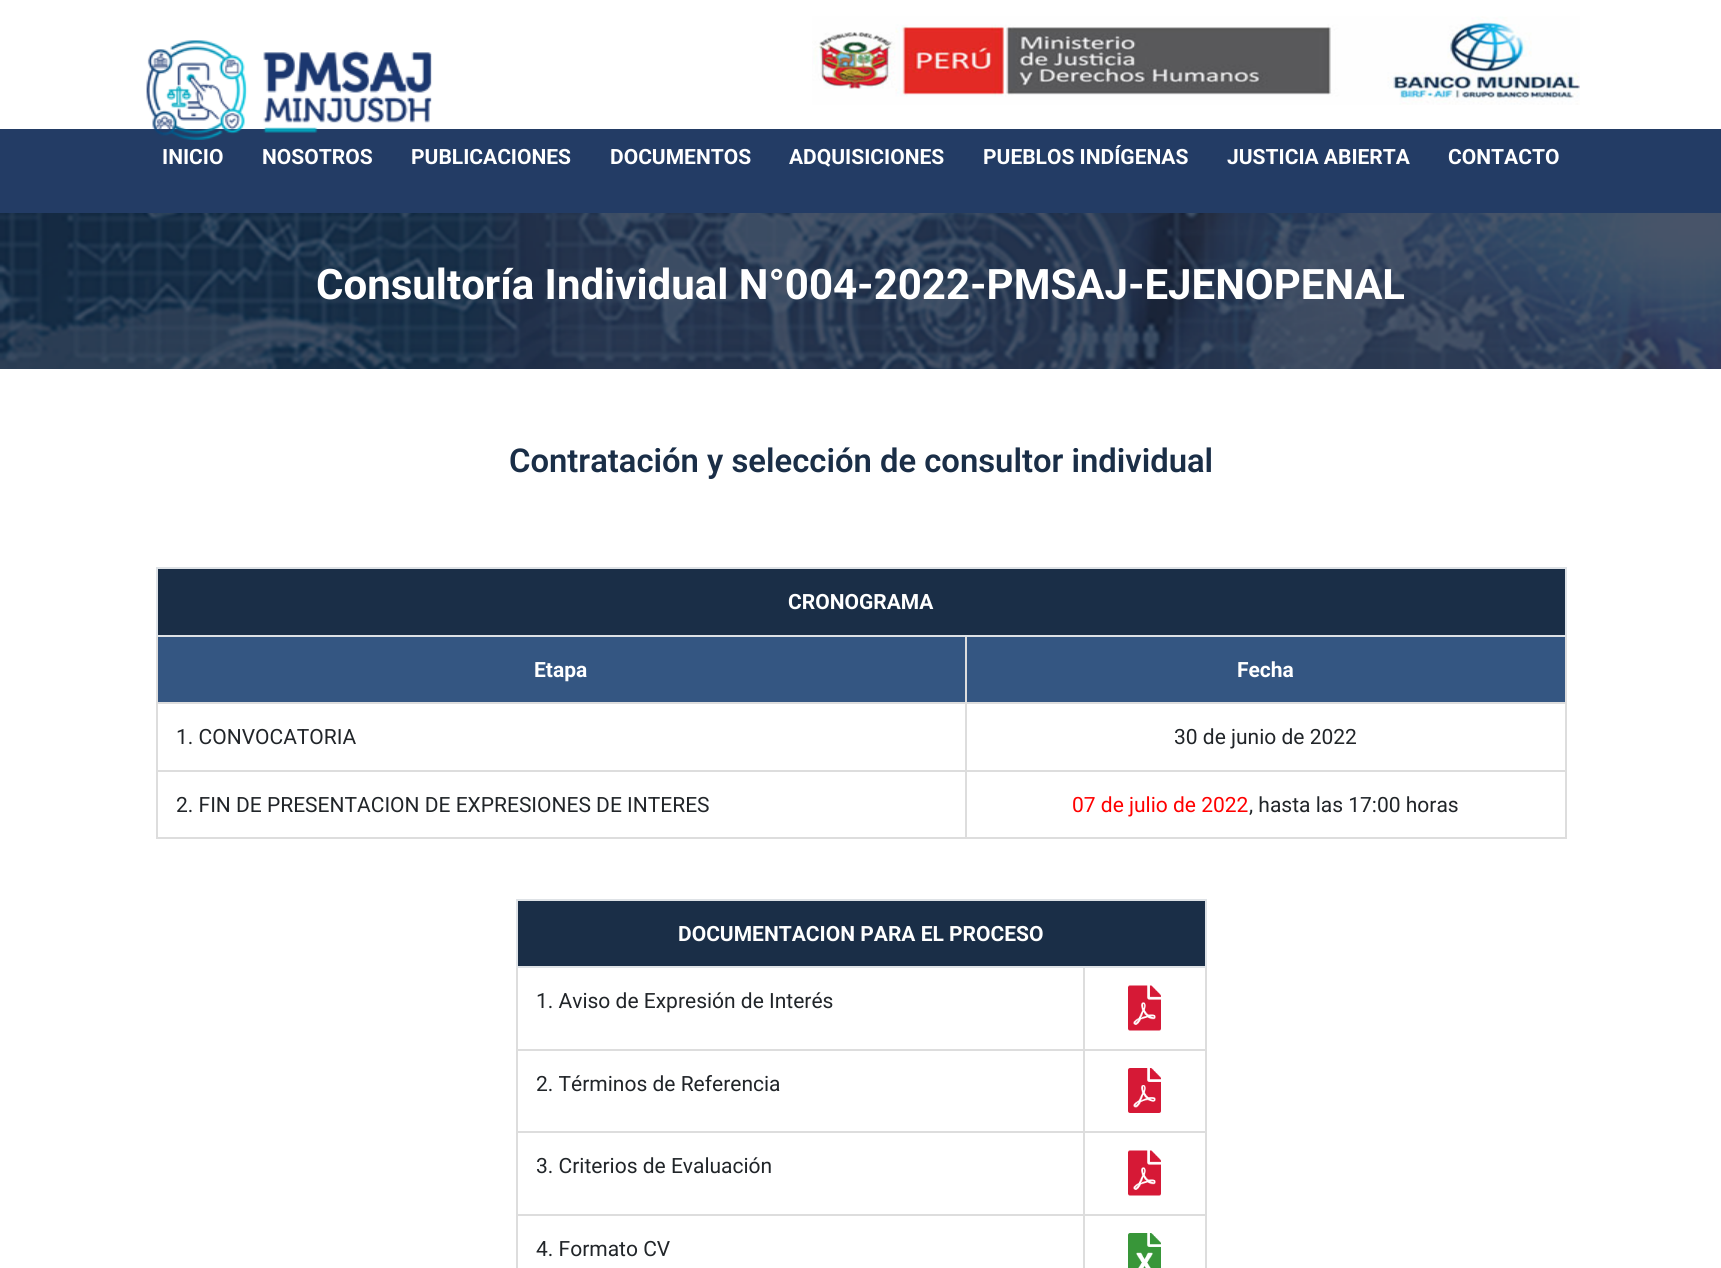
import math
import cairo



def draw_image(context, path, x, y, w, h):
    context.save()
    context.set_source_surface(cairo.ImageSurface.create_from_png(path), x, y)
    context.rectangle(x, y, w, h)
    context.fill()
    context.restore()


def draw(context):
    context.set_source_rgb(1, 1, 1)
    context.paint()
    context.set_source_rgb(35 / 255, 60 / 255, 101 / 255)
    context.rectangle(0, 129, 1721, 84)
    context.fill()
    draw_image(context, "images/1.png", 146, 40, 286, 100)
    draw_image(context, "images/2.png", 812, 16, 768, 89)
    draw_image(context, "images/3.png", 0, 213, 1721, 156)
    context.set_source_rgb(222 / 255, 226 / 255, 230 / 255)
    context.rectangle(156, 567, 1410, 2)
    context.fill()
    context.rectangle(1565, 567, 2, 68)
    context.fill()
    context.rectangle(156, 567, 2, 68)
    context.fill()
    context.set_source_rgb(26 / 255, 46 / 255, 71 / 255)
    context.rectangle(158, 569, 1407, 66)
    context.fill()
    context.set_source_rgb(221 / 255, 221 / 255, 221 / 255)
    context.rectangle(1565, 635, 2, 204)
    context.fill()
    context.rectangle(965, 837, 601, 2)
    context.fill()
    context.rectangle(965, 770, 2, 69)
    context.fill()
    context.rectangle(965, 770, 601, 2)
    context.fill()
    context.rectangle(965, 702, 2, 69)
    context.fill()
    context.rectangle(965, 702, 601, 2)
    context.fill()
    context.rectangle(965, 635, 2, 69)
    context.fill()
    context.rectangle(156, 837, 810, 2)
    context.fill()
    context.rectangle(156, 770, 2, 69)
    context.fill()
    context.rectangle(156, 770, 810, 2)
    context.fill()
    context.rectangle(156, 702, 2, 69)
    context.fill()
    context.rectangle(156, 702, 810, 2)
    context.fill()
    context.rectangle(156, 635, 2, 69)
    context.fill()
    context.set_source_rgb(222 / 255, 226 / 255, 230 / 255)
    context.rectangle(156, 635, 1410, 2)
    context.fill()
    context.set_source_rgb(52 / 255, 86 / 255, 130 / 255)
    context.rectangle(158, 637, 807, 65)
    context.fill()
    context.rectangle(967, 637, 598, 65)
    context.fill()
    context.set_source_rgb(222 / 255, 226 / 255, 230 / 255)
    context.rectangle(516, 899, 690, 2)
    context.fill()
    context.rectangle(1205, 899, 2, 67)
    context.fill()
    context.rectangle(516, 899, 2, 67)
    context.fill()
    context.set_source_rgb(26 / 255, 46 / 255, 71 / 255)
    context.rectangle(518, 901, 687, 65)
    context.fill()
    context.set_source_rgb(221 / 255, 221 / 255, 221 / 255)
    context.rectangle(1083, 1214, 2, 54)
    context.fill()
    context.rectangle(1205, 966, 2, 302)
    context.fill()
    context.rectangle(1083, 1214, 123, 2)
    context.fill()
    context.rectangle(1083, 1131, 2, 84)
    context.fill()
    context.rectangle(1083, 1131, 123, 2)
    context.fill()
    context.rectangle(1083, 1049, 2, 84)
    context.fill()
    context.rectangle(1083, 1049, 123, 2)
    context.fill()
    context.rectangle(1083, 966, 2, 84)
    context.fill()
    context.rectangle(516, 1214, 2, 54)
    context.fill()
    context.rectangle(516, 1214, 569, 2)
    context.fill()
    context.rectangle(516, 1131, 2, 84)
    context.fill()
    context.rectangle(516, 1131, 569, 2)
    context.fill()
    context.rectangle(516, 1049, 2, 84)
    context.fill()
    context.rectangle(516, 1049, 569, 2)
    context.fill()
    context.rectangle(516, 966, 2, 84)
    context.fill()
    context.set_source_rgb(222 / 255, 226 / 255, 230 / 255)
    context.rectangle(516, 966, 690, 2)
    context.fill()
    draw_image(context, "images/4.png", 1128, 985, 33, 46)
    draw_image(context, "images/5.png", 1128, 1068, 33, 45)
    draw_image(context, "images/4.png", 1128, 1150, 33, 46)
    draw_image(context, "images/6.png", 1128, 1233, 33, 35)
    context.select_font_face("Roboto", cairo.FontSlant.NORMAL, cairo.FontWeight.BOLD)
    context.set_font_size(21)
    context.set_source_rgb(1, 1, 1)
    context.move_to(162, 164)
    context.show_text("INICIO")
    context.move_to(262, 164)
    context.show_text("NOSOTROS")
    context.move_to(411, 164)
    context.show_text("PUBLICACIONES")
    context.move_to(610, 164)
    context.show_text("DOCUMENTOS")
    context.move_to(789, 164)
    context.show_text("ADQUISICIONES")
    context.move_to(983, 164)
    context.show_text("PUEBLOS INDÍGENAS")
    context.move_to(1227, 164)
    context.show_text("JUSTICIA ABIERTA")
    context.move_to(1448, 164)
    context.show_text("CONTACTO")
    context.set_font_size(42)
    context.move_to(316, 299)
    context.show_text("Consultoría Individual N°004-2022-PMSAJ-EJENOPENAL")
    context.select_font_face("Roboto SemiBold")
    context.set_font_size(32.8)
    context.set_source_rgb(26 / 255, 46 / 255, 71 / 255)
    context.move_to(509, 472)
    context.show_text("Contratación y selección de consultor individual")
    context.select_font_face("Roboto", cairo.FontSlant.NORMAL, cairo.FontWeight.BOLD)
    context.set_font_size(21)
    context.set_source_rgb(1, 1, 1)
    context.move_to(788, 609)
    context.show_text("CRONOGRAMA")
    context.move_to(534, 677)
    context.show_text("Etapa")
    context.move_to(1237, 677)
    context.show_text("Fecha")
    context.select_font_face("Roboto")
    context.set_source_rgb(33 / 255, 37 / 255, 41 / 255)
    context.move_to(176, 744)
    context.show_text("1. CONVOCATORIA")
    context.move_to(1174, 744)
    context.show_text("30 de junio de 2022")
    context.move_to(176, 812)
    context.show_text("2. FIN DE PRESENTACION DE EXPRESIONES DE INTERES")
    context.set_source_rgb(1, 0, 0)
    context.move_to(1072, 812)
    context.show_text("07 de julio de 2022")
    context.set_source_rgb(33 / 255, 37 / 255, 41 / 255)
    context.move_to(1249, 812)
    context.show_text(", hasta las 17:00 horas")
    context.select_font_face("Roboto", cairo.FontSlant.NORMAL, cairo.FontWeight.BOLD)
    context.set_source_rgb(1, 1, 1)
    context.move_to(678, 941)
    context.show_text("DOCUMENTACION PARA EL PROCESO")
    context.select_font_face("Roboto")
    context.set_source_rgb(33 / 255, 37 / 255, 41 / 255)
    context.move_to(536, 1008)
    context.show_text("1. Aviso de Expresión de Interés")
    context.move_to(536, 1091)
    context.show_text("2. Términos de Referencia")
    context.move_to(536, 1173)
    context.show_text("3. Criterios de Evaluación")
    context.move_to(536, 1256)
    context.show_text("4. Formato CV")


surface = cairo.ImageSurface(cairo.Format.RGB24, 1721, 1268)
context = cairo.Context(surface)
options = cairo.FontOptions()
options.set_hint_metrics(cairo.HintMetrics.OFF)
options.set_hint_style(cairo.HintStyle.NONE)
context.set_font_options(options)
context.set_miter_limit(4)
draw(context)
surface.write_to_png("out.png")
